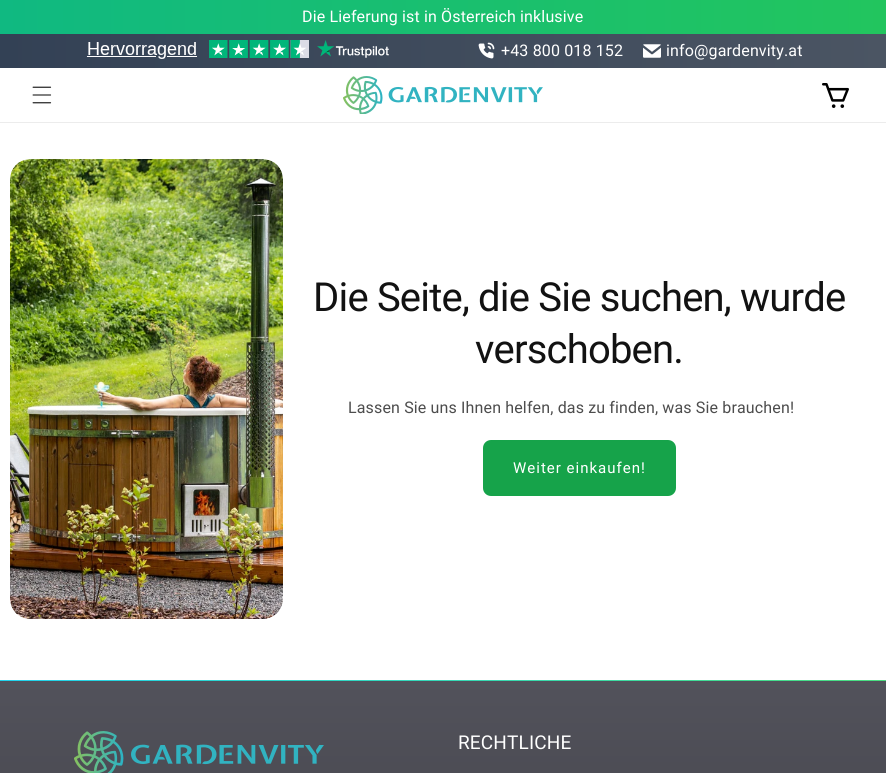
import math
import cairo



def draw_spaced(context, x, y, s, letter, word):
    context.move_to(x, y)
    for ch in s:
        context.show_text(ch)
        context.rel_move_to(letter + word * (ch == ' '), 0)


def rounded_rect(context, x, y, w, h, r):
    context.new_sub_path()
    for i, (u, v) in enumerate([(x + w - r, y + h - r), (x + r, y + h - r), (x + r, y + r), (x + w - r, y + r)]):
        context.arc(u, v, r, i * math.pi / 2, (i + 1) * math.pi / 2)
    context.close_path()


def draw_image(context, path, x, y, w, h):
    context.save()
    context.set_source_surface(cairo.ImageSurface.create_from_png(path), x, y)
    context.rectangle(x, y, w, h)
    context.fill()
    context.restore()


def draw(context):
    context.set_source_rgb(1, 1, 1)
    context.paint()
    gradient = cairo.LinearGradient(0, 17, 886, 17)
    gradient.add_color_stop_rgba(0, 16 / 255, 185 / 255, 129 / 255, 1)
    gradient.add_color_stop_rgba(1, 34 / 255, 197 / 255, 94 / 255, 1)
    context.set_source(gradient)
    context.rectangle(0, 0, 886, 34)
    context.fill()
    gradient = cairo.LinearGradient(0, 51, 886, 51)
    gradient.add_color_stop_rgba(0, 51 / 255, 65 / 255, 85 / 255, 1)
    gradient.add_color_stop_rgba(1, 75 / 255, 85 / 255, 99 / 255, 1)
    context.set_source(gradient)
    context.rectangle(0, 34, 886, 34)
    context.fill()
    draw_image(context, "images/1.png", 86, 40, 303, 19)
    draw_image(context, "images/2.png", 478, 42, 17, 17)
    draw_image(context, "images/3.png", 643, 44, 18, 14)
    context.set_source_rgb(236 / 255, 236 / 255, 236 / 255)
    context.rectangle(0, 122, 886, 1)
    context.fill()
    draw_image(context, "images/4.png", 32, 86, 20, 18)
    draw_image(context, "images/5.png", 343, 76, 200, 38)
    draw_image(context, "images/6.png", 822, 83, 27, 25)
    draw_image(context, "images/7.png", 10, 159, 273, 460)
    context.set_source_rgb(22 / 255, 163 / 255, 74 / 255)
    rounded_rect(context, 483, 440, 193, 56, 8)
    context.fill()
    gradient = cairo.LinearGradient(0, 681, 886, 681)
    gradient.add_color_stop_rgba(0, 34 / 255, 211 / 255, 238 / 255, 1)
    gradient.add_color_stop_rgba(1, 74 / 255, 222 / 255, 128 / 255, 1)
    context.set_source(gradient)
    context.rectangle(0, 680, 886, 1)
    context.fill()
    gradient = cairo.LinearGradient(443, 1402, 443, 681)
    gradient.add_color_stop_rgba(0, 39 / 255, 39 / 255, 42 / 255, 1)
    gradient.add_color_stop_rgba(1, 82 / 255, 82 / 255, 91 / 255, 1)
    context.set_source(gradient)
    context.rectangle(0, 681, 886, 92)
    context.fill()
    draw_image(context, "images/8.png", 74, 731, 250, 42)
    context.select_font_face("Roboto")
    context.set_font_size(16)
    context.set_source_rgb(1, 1, 1)
    draw_spaced(context, 302, 22, "Die Lieferung ist in Österreich inklusive", 0.15, 0)
    draw_spaced(context, 501, 56, "+43 800 018 152", 0.15, 0)
    draw_spaced(context, 666, 56, "info@gardenvity.at", 0.15, 0)
    context.set_font_size(40)
    context.set_source_rgb(18 / 255, 18 / 255, 18 / 255)
    draw_spaced(context, 313, 311, "Die Seite, die Sie suchen, wurde", -0.8, 0)
    draw_spaced(context, 475, 363, "verschoben.", -0.8, 0)
    context.set_font_size(16)
    context.set_source_rgb(77 / 255, 77 / 255, 77 / 255)
    draw_spaced(context, 348, 413, "Lassen Sie uns Ihnen helfen, das zu finden, was Sie brauchen!", 0.15, 0)
    context.set_font_size(15)
    context.set_source_rgb(1, 1, 1)
    draw_spaced(context, 513, 473, "Weiter einkaufen!", 1, 0)
    context.set_font_size(19)
    draw_spaced(context, 458, 749, "RECHTLICHE", 0.15, 0)


surface = cairo.ImageSurface(cairo.Format.RGB24, 886, 773)
context = cairo.Context(surface)
options = cairo.FontOptions()
options.set_hint_metrics(cairo.HintMetrics.OFF)
options.set_hint_style(cairo.HintStyle.NONE)
context.set_font_options(options)
context.set_miter_limit(4)
draw(context)
surface.write_to_png("out.png")
